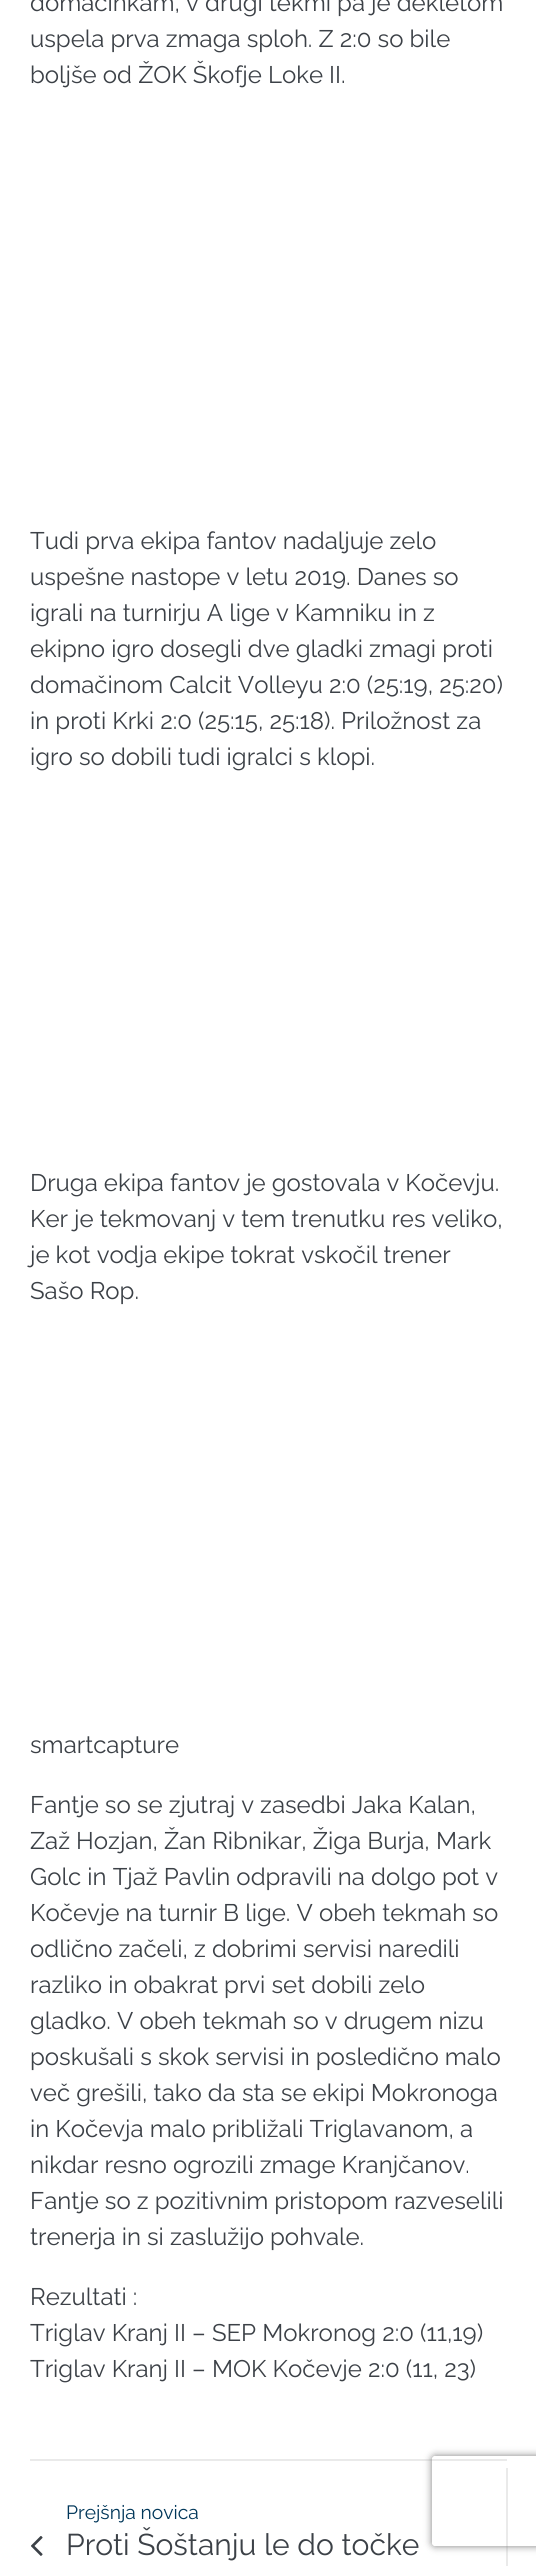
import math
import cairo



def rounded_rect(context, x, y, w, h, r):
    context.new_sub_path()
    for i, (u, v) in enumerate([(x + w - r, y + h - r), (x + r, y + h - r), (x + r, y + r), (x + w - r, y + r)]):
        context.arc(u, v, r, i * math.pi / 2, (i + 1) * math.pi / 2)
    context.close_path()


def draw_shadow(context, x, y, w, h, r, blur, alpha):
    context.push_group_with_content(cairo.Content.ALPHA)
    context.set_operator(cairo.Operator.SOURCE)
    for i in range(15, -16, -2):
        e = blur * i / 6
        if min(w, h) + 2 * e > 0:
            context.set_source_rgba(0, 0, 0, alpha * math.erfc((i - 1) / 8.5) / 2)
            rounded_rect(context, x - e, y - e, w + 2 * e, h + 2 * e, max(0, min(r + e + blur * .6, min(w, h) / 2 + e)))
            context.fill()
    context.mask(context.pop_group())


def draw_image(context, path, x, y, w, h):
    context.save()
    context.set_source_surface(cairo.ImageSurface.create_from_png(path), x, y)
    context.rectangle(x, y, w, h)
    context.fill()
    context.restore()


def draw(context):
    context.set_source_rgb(1, 1, 1)
    context.paint()
    context.set_source_rgb(234 / 255, 234 / 255, 234 / 255)
    context.rectangle(30, 2459, 477, 2)
    context.fill()
    context.rectangle(506, 2468, 2, 98)
    context.fill()
    draw_image(context, "images/1.png", 31, 2536, 12, 20)
    context.save()
    context.set_fill_rule(cairo.FillRule.EVEN_ODD)
    context.new_path()
    context.move_to(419, 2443)
    context.line_to(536, 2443)
    context.line_to(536, 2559)
    context.line_to(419, 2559)
    context.close_path()
    context.move_to(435, 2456)
    context.line_to(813, 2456)
    context.curve_to(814.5, 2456, 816, 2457.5, 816, 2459)
    context.line_to(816, 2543)
    context.curve_to(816, 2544.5, 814.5, 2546, 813, 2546)
    context.line_to(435, 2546)
    context.curve_to(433.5, 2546, 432, 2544.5, 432, 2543)
    context.line_to(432, 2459)
    context.curve_to(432, 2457.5, 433.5, 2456, 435, 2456)
    context.close_path()
    context.clip()
    context.set_source_rgb(128 / 255, 128 / 255, 128 / 255)
    draw_shadow(context, 432, 2456, 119, 90, 3, 4, 1)
    context.restore()
    context.select_font_face("Raleway Thin")
    context.set_font_size(24)
    context.set_source_rgb(60 / 255, 65 / 255, 71 / 255)
    context.move_to(30, 11)
    context.show_text("domačinkam, v drugi tekmi pa je dekletom")
    context.move_to(30, 47)
    context.show_text("uspela prva zmaga sploh. Z 2:0 so bile")
    context.move_to(30, 83)
    context.show_text("boljše od ŽOK Škofje Loke II.")
    context.move_to(30, 549)
    context.show_text("Tudi prva ekipa fantov nadaljuje zelo")
    context.move_to(30, 585)
    context.show_text("uspešne nastope v letu 2019. Danes so")
    context.move_to(30, 621)
    context.show_text("igrali na turnirju A lige v Kamniku in z")
    context.move_to(30, 657)
    context.show_text("ekipno igro dosegli dve gladki zmagi proti")
    context.move_to(30, 693)
    context.show_text("domačinom Calcit Volleyu 2:0 (25:19, 25:20)")
    context.move_to(30, 729)
    context.show_text("in proti Krki 2:0 (25:15, 25:18). Priložnost za")
    context.move_to(30, 765)
    context.show_text("igro so dobili tudi igralci s klopi.")
    context.move_to(30, 1191)
    context.show_text("Druga ekipa fantov je gostovala v Kočevju.")
    context.move_to(30, 1227)
    context.show_text("Ker je tekmovanj v tem trenutku res veliko,")
    context.move_to(30, 1263)
    context.show_text("je kot vodja ekipe tokrat vskočil trener")
    context.move_to(30, 1299)
    context.show_text("Sašo Rop.")
    context.move_to(30, 1753)
    context.show_text("smartcapture")
    context.move_to(30, 1813)
    context.show_text("Fantje so se zjutraj v zasedbi Jaka Kalan,")
    context.move_to(30, 1849)
    context.show_text("Zaž Hozjan, Žan Ribnikar, Žiga Burja, Mark")
    context.move_to(30, 1885)
    context.show_text("Golc in Tjaž Pavlin odpravili na dolgo pot v")
    context.move_to(30, 1921)
    context.show_text("Kočevje na turnir B lige. V obeh tekmah so")
    context.move_to(30, 1957)
    context.show_text("odlično začeli, z dobrimi servisi naredili")
    context.move_to(30, 1993)
    context.show_text("razliko in obakrat prvi set dobili zelo")
    context.move_to(30, 2029)
    context.show_text("gladko. V obeh tekmah so v drugem nizu")
    context.move_to(30, 2065)
    context.show_text("poskušali s skok servisi in posledično malo")
    context.move_to(30, 2101)
    context.show_text("več grešili, tako da sta se ekipi Mokronoga")
    context.move_to(30, 2137)
    context.show_text("in Kočevja malo približali Triglavanom, a")
    context.move_to(30, 2173)
    context.show_text("nikdar resno ogrozili zmage Kranjčanov.")
    context.move_to(30, 2209)
    context.show_text("Fantje so z pozitivnim pristopom razveselili")
    context.move_to(30, 2245)
    context.show_text("trenerja in si zaslužijo pohvale.")
    context.move_to(30, 2305)
    context.show_text("Rezultati :")
    context.move_to(30, 2341)
    context.show_text("Triglav Kranj II – SEP Mokronog 2:0 (11,19)")
    context.move_to(30, 2377)
    context.show_text("Triglav Kranj II – MOK Kočevje 2:0 (11, 23)")
    context.set_font_size(19.25)
    context.set_source_rgb(0, 54 / 255, 89 / 255)
    context.move_to(66, 2519)
    context.show_text("Prejšnja novica")
    context.set_font_size(30)
    context.set_source_rgb(60 / 255, 65 / 255, 71 / 255)
    context.move_to(66, 2555)
    context.show_text("Proti Šoštanju le do točke")


surface = cairo.ImageSurface(cairo.Format.RGB24, 536, 2566)
context = cairo.Context(surface)
options = cairo.FontOptions()
options.set_hint_metrics(cairo.HintMetrics.OFF)
options.set_hint_style(cairo.HintStyle.NONE)
context.set_font_options(options)
context.set_miter_limit(4)
draw(context)
surface.write_to_png("out.png")
